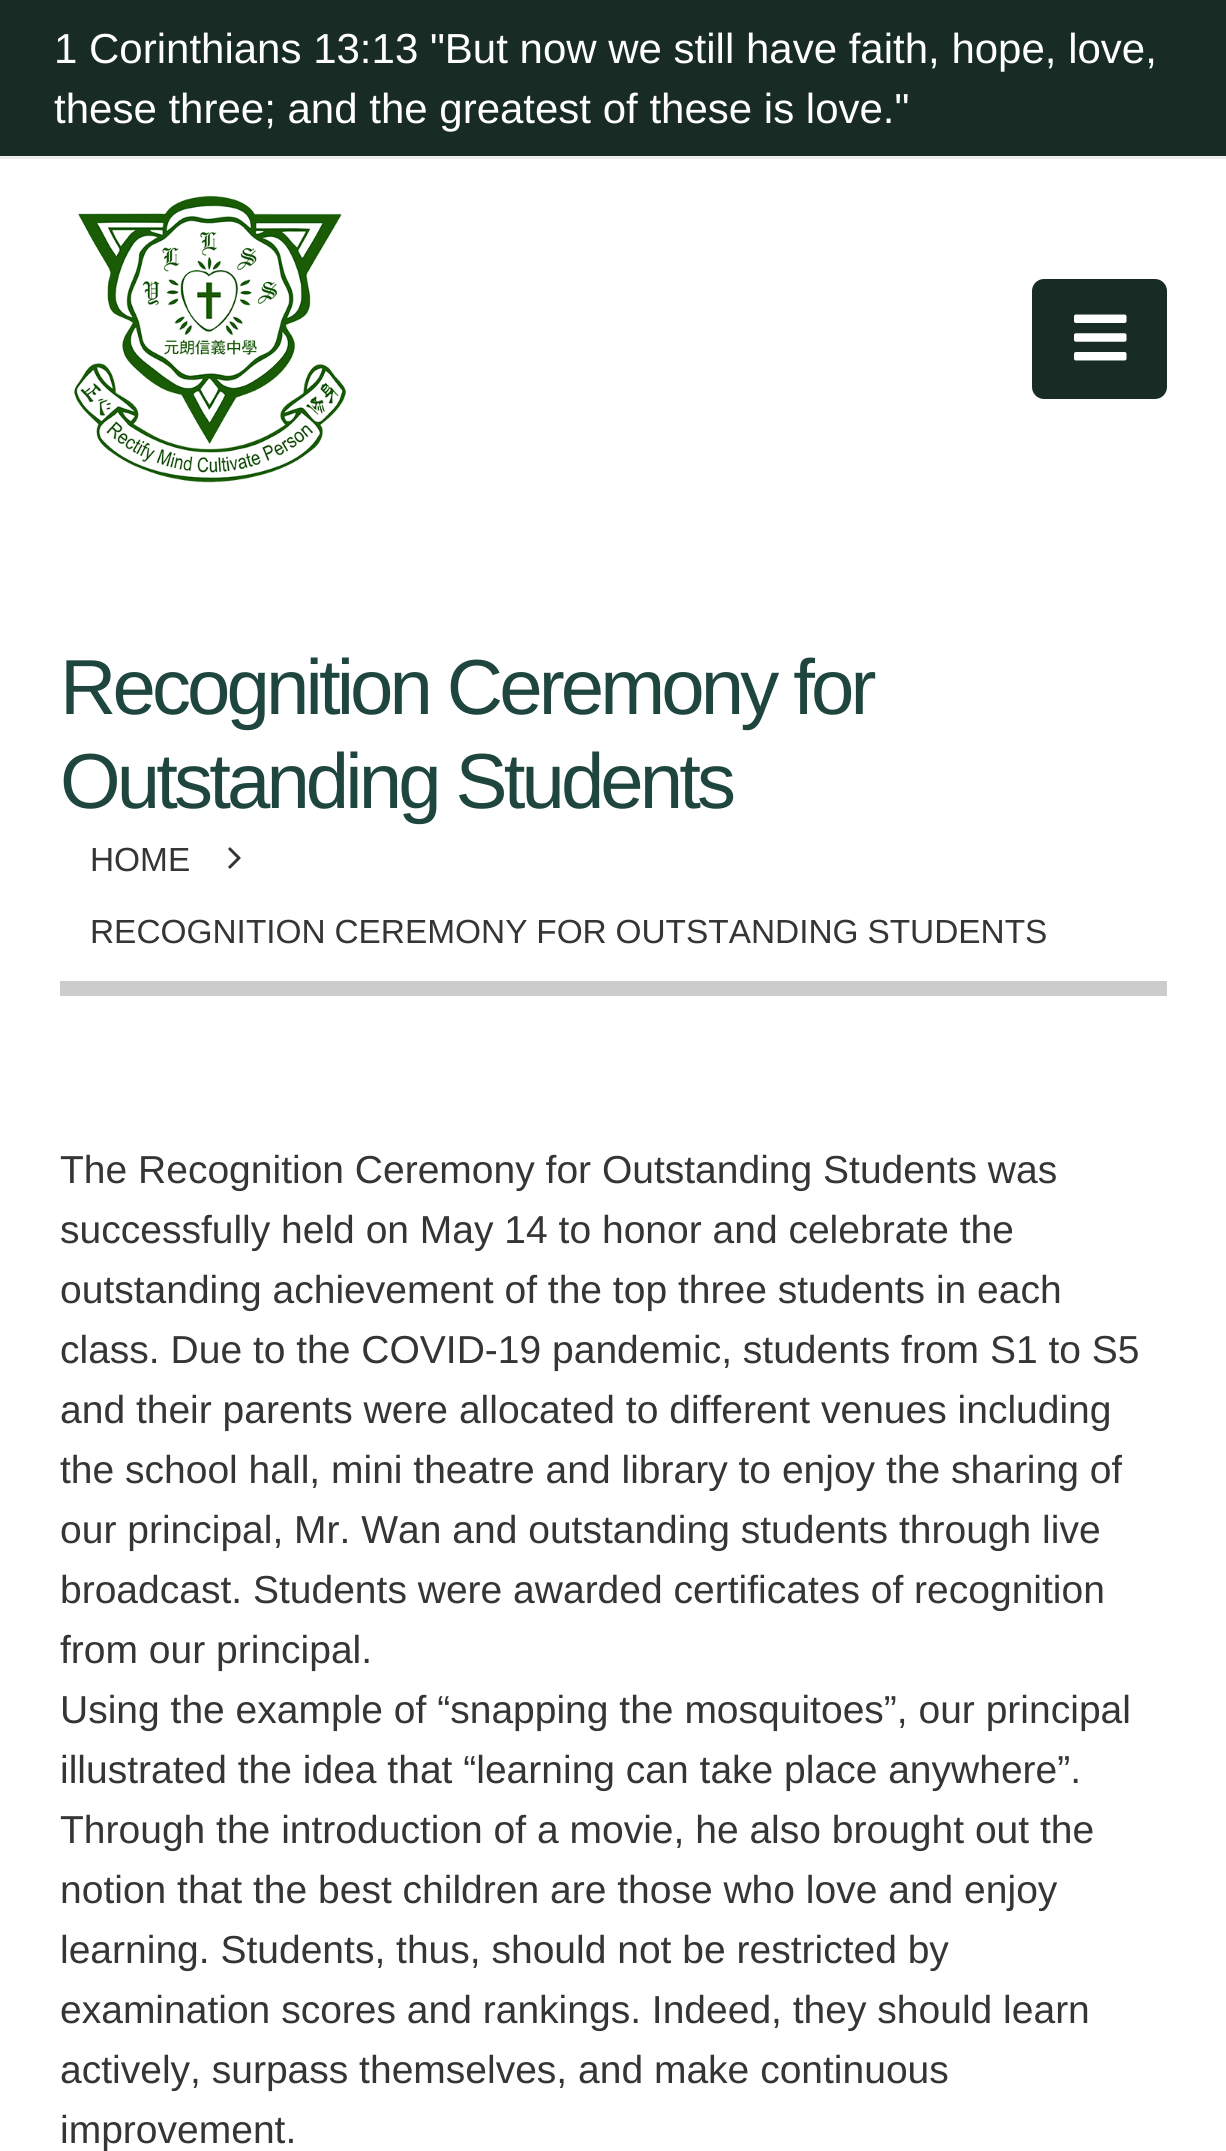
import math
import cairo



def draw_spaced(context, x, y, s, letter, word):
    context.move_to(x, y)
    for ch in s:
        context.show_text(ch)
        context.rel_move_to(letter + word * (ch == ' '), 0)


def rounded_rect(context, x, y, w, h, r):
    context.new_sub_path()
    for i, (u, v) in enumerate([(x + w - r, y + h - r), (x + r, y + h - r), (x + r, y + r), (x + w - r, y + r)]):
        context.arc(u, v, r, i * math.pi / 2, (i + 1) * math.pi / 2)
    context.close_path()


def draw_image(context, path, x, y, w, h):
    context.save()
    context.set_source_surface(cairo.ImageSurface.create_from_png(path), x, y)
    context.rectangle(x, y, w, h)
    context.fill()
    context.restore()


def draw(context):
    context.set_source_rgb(1, 1, 1)
    context.paint()
    context.set_source_rgb(24 / 255, 44 / 255, 37 / 255)
    context.rectangle(0, 0, 1226, 156)
    context.fill()
    context.set_source_rgb(237 / 255, 237 / 255, 237 / 255)
    context.rectangle(0, 156, 1226, 3)
    context.fill()
    draw_image(context, "images/1.png", 74, 195, 272, 288)
    context.set_source_rgb(24 / 255, 44 / 255, 37 / 255)
    rounded_rect(context, 1032, 279, 135, 120, 12)
    context.fill()
    draw_image(context, "images/2.png", 1074, 314, 53, 47)
    context.set_source_rgb(204 / 255, 204 / 255, 204 / 255)
    context.rectangle(60, 981, 1107, 15)
    context.fill()
    draw_image(context, "images/3.png", 228, 847, 13, 22)
    context.select_font_face("Liberation Sans")
    context.set_font_size(42)
    context.set_source_rgb(1, 1, 1)
    context.move_to(54, 63)
    context.show_text("1 Corinthians 13:13 \"But now we still have faith, hope, love,")
    context.move_to(54, 123)
    context.show_text("these three; and the greatest of these is love.\"")
    context.set_font_size(78)
    context.set_source_rgb(30 / 255, 69 / 255, 62 / 255)
    draw_spaced(context, 60, 714, "Recognition Ceremony for", -3.9, 0)
    draw_spaced(context, 60, 808, "Outstanding Students", -3.9, 0)
    context.set_font_size(33.4)
    context.set_source_rgb(53 / 255, 53 / 255, 53 / 255)
    context.move_to(90, 871)
    context.show_text("HOME")
    draw_spaced(context, 90, 943, "RECOGNITION CEREMONY FOR OUTSTANDING STUDENTS", 0, -0.5)
    context.set_font_size(39)
    context.move_to(60, 1183)
    context.show_text("The Recognition Ceremony for Outstanding Students was")
    context.move_to(60, 1243)
    context.show_text("successfully held on May 14 to honor and celebrate the")
    context.move_to(60, 1303)
    context.show_text("outstanding achievement of the top three students in each")
    context.move_to(60, 1363)
    context.show_text("class. Due to the COVID-19 pandemic, students from S1 to S5")
    context.move_to(60, 1423)
    context.show_text("and their parents were allocated to different venues including")
    context.move_to(60, 1483)
    context.show_text("the school hall, mini theatre and library to enjoy the sharing of")
    context.move_to(60, 1543)
    context.show_text("our principal, Mr. Wan and outstanding students through live")
    context.move_to(60, 1603)
    context.show_text("broadcast. Students were awarded certificates of recognition")
    context.move_to(60, 1663)
    context.show_text("from our principal.")
    context.move_to(60, 1723)
    context.show_text("Using the example of “snapping the mosquitoes”, our principal")
    context.move_to(60, 1783)
    context.show_text("illustrated the idea that “learning can take place anywhere”.")
    context.move_to(60, 1843)
    context.show_text("Through the introduction of a movie, he also brought out the")
    context.move_to(60, 1903)
    context.show_text("notion that the best children are those who love and enjoy")
    context.move_to(60, 1963)
    context.show_text("learning. Students, thus, should not be restricted by")
    context.move_to(60, 2023)
    context.show_text("examination scores and rankings. Indeed, they should learn")
    context.move_to(60, 2083)
    context.show_text("actively, surpass themselves, and make continuous")
    context.move_to(60, 2143)
    context.show_text("improvement.")


surface = cairo.ImageSurface(cairo.Format.RGB24, 1226, 2151)
context = cairo.Context(surface)
options = cairo.FontOptions()
options.set_hint_metrics(cairo.HintMetrics.OFF)
options.set_hint_style(cairo.HintStyle.NONE)
context.set_font_options(options)
context.set_miter_limit(4)
draw(context)
surface.write_to_png("out.png")
